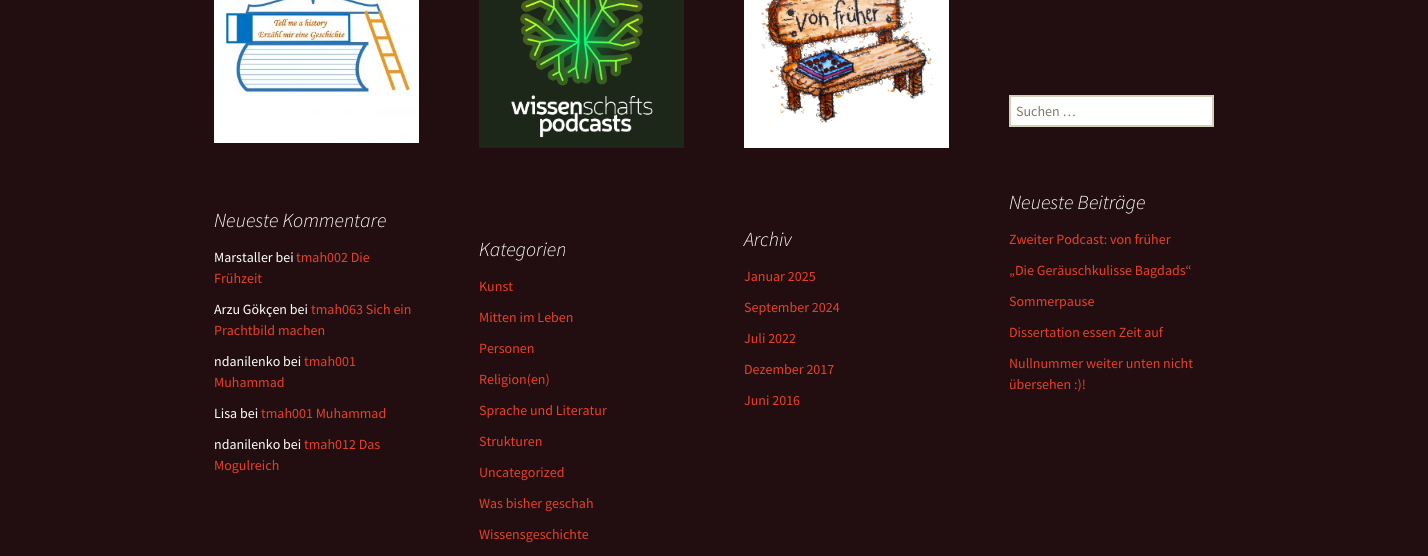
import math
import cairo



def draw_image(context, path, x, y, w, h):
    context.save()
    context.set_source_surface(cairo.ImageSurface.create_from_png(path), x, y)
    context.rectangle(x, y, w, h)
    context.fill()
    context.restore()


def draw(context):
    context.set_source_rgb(34 / 255, 14 / 255, 16 / 255)
    context.paint()
    draw_image(context, "images/1.png", 214, 0, 205, 143)
    draw_image(context, "images/2.png", 479, 0, 205, 148)
    draw_image(context, "images/3.png", 744, 0, 205, 148)
    context.set_source_rgb(1, 1, 1)
    context.rectangle(1010, 96, 203, 30)
    context.fill_preserve()
    context.set_source_rgb(212 / 255, 208 / 255, 186 / 255)
    context.stroke()
    context.select_font_face("Source Sans Pro")
    context.set_font_size(14)
    context.set_source_rgb(125 / 255, 123 / 255, 109 / 255)
    context.move_to(1016, 116)
    context.show_text("Suchen …")
    context.select_font_face("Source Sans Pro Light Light", cairo.FontSlant.ITALIC)
    context.set_font_size(20)
    context.set_source_rgb(1, 1, 1)
    context.move_to(214, 227)
    context.show_text("Neueste Kommentare")
    context.select_font_face("Source Sans Pro")
    context.set_font_size(14)
    context.move_to(214, 262)
    context.show_text("Marstaller bei")
    context.set_source_rgb(230 / 255, 64 / 255, 42 / 255)
    context.move_to(296, 262)
    context.show_text("tmah002 Die")
    context.move_to(214, 283)
    context.show_text("Frühzeit")
    context.set_source_rgb(1, 1, 1)
    context.move_to(214, 314)
    context.show_text("Arzu Gökçen bei")
    context.set_source_rgb(230 / 255, 64 / 255, 42 / 255)
    context.move_to(311, 314)
    context.show_text("tmah063 Sich ein")
    context.move_to(214, 335)
    context.show_text("Prachtbild machen")
    context.set_source_rgb(1, 1, 1)
    context.move_to(214, 366)
    context.show_text("ndanilenko bei")
    context.set_source_rgb(230 / 255, 64 / 255, 42 / 255)
    context.move_to(304, 366)
    context.show_text("tmah001")
    context.move_to(214, 387)
    context.show_text("Muhammad")
    context.set_source_rgb(1, 1, 1)
    context.move_to(214, 418)
    context.show_text("Lisa bei")
    context.set_source_rgb(230 / 255, 64 / 255, 42 / 255)
    context.move_to(261, 418)
    context.show_text("tmah001 Muhammad")
    context.set_source_rgb(1, 1, 1)
    context.move_to(214, 449)
    context.show_text("ndanilenko bei")
    context.set_source_rgb(230 / 255, 64 / 255, 42 / 255)
    context.move_to(304, 449)
    context.show_text("tmah012 Das")
    context.move_to(214, 470)
    context.show_text("Mogulreich")
    context.select_font_face("Source Sans Pro Light Light", cairo.FontSlant.ITALIC)
    context.set_font_size(20)
    context.set_source_rgb(1, 1, 1)
    context.move_to(479, 256)
    context.show_text("Kategorien")
    context.select_font_face("Source Sans Pro")
    context.set_font_size(14)
    context.set_source_rgb(230 / 255, 64 / 255, 42 / 255)
    context.move_to(479, 291)
    context.show_text("Kunst")
    context.move_to(479, 322)
    context.show_text("Mitten im Leben")
    context.move_to(479, 353)
    context.show_text("Personen")
    context.move_to(479, 384)
    context.show_text("Religion(en)")
    context.move_to(479, 415)
    context.show_text("Sprache und Literatur")
    context.move_to(479, 446)
    context.show_text("Strukturen")
    context.move_to(479, 477)
    context.show_text("Uncategorized")
    context.move_to(479, 508)
    context.show_text("Was bisher geschah")
    context.move_to(479, 539)
    context.show_text("Wissensgeschichte")
    context.select_font_face("Source Sans Pro Light Light", cairo.FontSlant.ITALIC)
    context.set_font_size(20)
    context.set_source_rgb(1, 1, 1)
    context.move_to(744, 246)
    context.show_text("Archiv")
    context.select_font_face("Source Sans Pro")
    context.set_font_size(14)
    context.set_source_rgb(230 / 255, 64 / 255, 42 / 255)
    context.move_to(744, 281)
    context.show_text("Januar 2025")
    context.move_to(744, 312)
    context.show_text("September 2024")
    context.move_to(744, 343)
    context.show_text("Juli 2022")
    context.move_to(744, 374)
    context.show_text("Dezember 2017")
    context.move_to(744, 405)
    context.show_text("Juni 2016")
    context.select_font_face("Source Sans Pro Light Light", cairo.FontSlant.ITALIC)
    context.set_font_size(20)
    context.set_source_rgb(1, 1, 1)
    context.move_to(1009, 209)
    context.show_text("Neueste Beiträge")
    context.select_font_face("Source Sans Pro")
    context.set_font_size(14)
    context.set_source_rgb(230 / 255, 64 / 255, 42 / 255)
    context.move_to(1009, 244)
    context.show_text("Zweiter Podcast: von früher")
    context.move_to(1009, 275)
    context.show_text("„Die Geräuschkulisse Bagdads“")
    context.move_to(1009, 306)
    context.show_text("Sommerpause")
    context.move_to(1009, 337)
    context.show_text("Dissertation essen Zeit auf")
    context.move_to(1009, 368)
    context.show_text("Nullnummer weiter unten nicht")
    context.move_to(1009, 389)
    context.show_text("übersehen :)!")


surface = cairo.ImageSurface(cairo.Format.RGB24, 1428, 556)
context = cairo.Context(surface)
options = cairo.FontOptions()
options.set_hint_metrics(cairo.HintMetrics.OFF)
options.set_hint_style(cairo.HintStyle.NONE)
context.set_font_options(options)
context.set_miter_limit(4)
draw(context)
surface.write_to_png("out.png")
